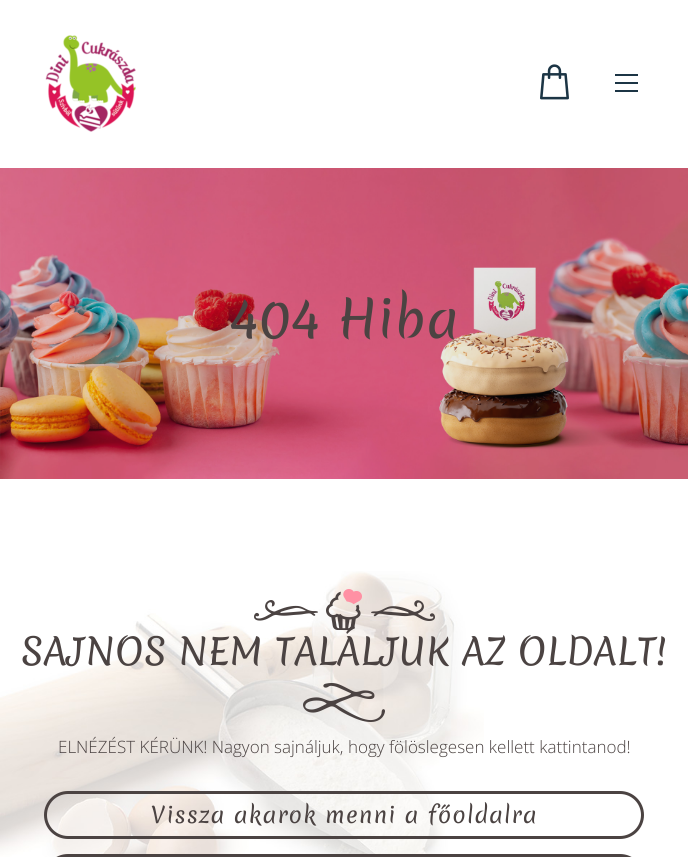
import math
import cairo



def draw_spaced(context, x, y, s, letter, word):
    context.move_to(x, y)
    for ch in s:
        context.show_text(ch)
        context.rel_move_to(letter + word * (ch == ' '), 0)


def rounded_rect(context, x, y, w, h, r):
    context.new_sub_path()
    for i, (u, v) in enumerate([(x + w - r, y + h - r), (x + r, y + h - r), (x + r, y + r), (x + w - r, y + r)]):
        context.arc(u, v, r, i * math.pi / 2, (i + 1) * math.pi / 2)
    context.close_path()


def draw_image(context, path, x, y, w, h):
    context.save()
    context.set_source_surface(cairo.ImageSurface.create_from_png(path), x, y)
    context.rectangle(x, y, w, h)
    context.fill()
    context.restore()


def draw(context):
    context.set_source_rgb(1, 1, 1)
    context.paint()
    draw_image(context, "images/1.png", 45, 35, 91, 97)
    draw_image(context, "images/2.png", 540, 64, 29, 36)
    context.set_source_rgb(28 / 255, 53 / 255, 69 / 255)
    context.rectangle(615, 82, 23, 2)
    context.fill()
    context.rectangle(615, 74, 23, 2)
    context.fill()
    context.rectangle(615, 90, 23, 2)
    context.fill()
    draw_image(context, "images/3.png", 0, 168, 688, 311)
    draw_image(context, "images/4.png", 0, 571, 484, 286)
    draw_image(context, "images/6.png", 303, 683, 82, 39)
    rounded_rect(context, 45.5, 792.5, 597, 45, 22.5)
    context.set_source_rgb(75 / 255, 67 / 255, 66 / 255)
    context.set_line_width(3)
    context.stroke()
    rounded_rect(context, 45.5, 855.5, 597, 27, 22.5)
    context.stroke()
    context.select_font_face("Merienda")
    context.set_font_size(51)
    context.move_to(230, 338)
    context.show_text("404 Hiba")
    context.set_font_size(36)
    context.move_to(21, 665)
    context.show_text("SAJNOS NEM TALÁLJUK AZ OLDALT!")
    draw_image(context, "images/5.png", 254, 589, 181, 41)
    context.select_font_face("Open Sans Light")
    context.set_font_size(17)
    context.move_to(58, 753)
    context.show_text("ELNÉZÉST KÉRÜNK! Nagyon sajnáljuk, hogy fölöslegesen kellett kattintanod!")
    context.select_font_face("Merienda")
    context.set_font_size(22)
    draw_spaced(context, 151, 823, "Vissza akarok menni a főoldalra", 1, 0)


surface = cairo.ImageSurface(cairo.Format.RGB24, 688, 857)
context = cairo.Context(surface)
options = cairo.FontOptions()
options.set_hint_metrics(cairo.HintMetrics.OFF)
options.set_hint_style(cairo.HintStyle.NONE)
context.set_font_options(options)
context.set_miter_limit(4)
draw(context)
surface.write_to_png("out.png")
